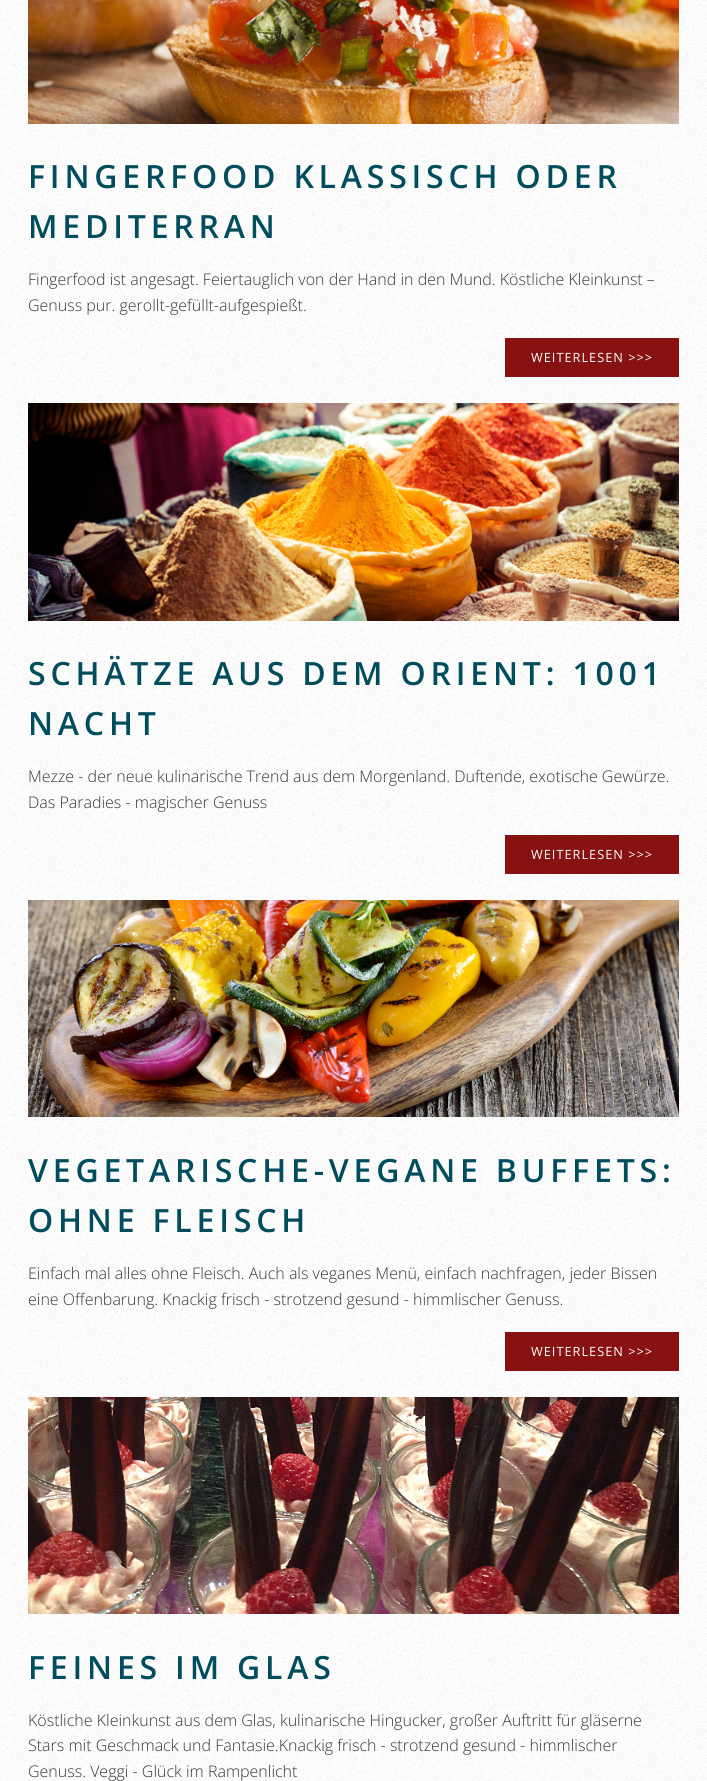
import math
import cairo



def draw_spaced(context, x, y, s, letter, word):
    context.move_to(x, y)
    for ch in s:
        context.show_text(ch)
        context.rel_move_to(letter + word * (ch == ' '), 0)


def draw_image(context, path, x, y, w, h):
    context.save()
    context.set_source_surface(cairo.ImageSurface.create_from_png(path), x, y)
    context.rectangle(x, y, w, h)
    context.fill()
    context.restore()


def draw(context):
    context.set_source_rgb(1, 1, 1)
    context.paint()
    draw_image(context, "images/1.png", 0, 0, 707, 1781)
    draw_image(context, "images/2.png", 28, 0, 651, 124)
    context.set_source_rgb(136 / 255, 17 / 255, 17 / 255)
    context.rectangle(505, 338, 174, 39)
    context.fill()
    draw_image(context, "images/3.png", 28, 403, 651, 218)
    context.rectangle(505, 835, 174, 39)
    context.fill()
    draw_image(context, "images/4.png", 28, 900, 651, 217)
    context.rectangle(505, 1332, 174, 39)
    context.fill()
    draw_image(context, "images/5.png", 28, 1397, 651, 217)
    context.select_font_face("Open Sans SemiBold")
    context.set_font_size(32)
    context.set_source_rgb(0, 77 / 255, 93 / 255)
    draw_spaced(context, 28, 188, "FINGERFOOD KLASSISCH ODER", 4.8, 0)
    draw_spaced(context, 28, 238, "MEDITERRAN", 4.8, 0)
    context.select_font_face("Open Sans Light")
    context.set_font_size(16)
    context.set_source_rgb(54 / 255, 54 / 255, 54 / 255)
    context.move_to(28, 285)
    context.show_text("Fingerfood ist angesagt. Feiertauglich von der Hand in den Mund. Köstliche Kleinkunst –")
    context.move_to(28, 311)
    context.show_text("Genuss pur. gerollt-gefüllt-aufgespießt.")
    context.select_font_face("Open Sans")
    context.set_font_size(12.75)
    context.set_source_rgb(1, 1, 1)
    draw_spaced(context, 531, 362, "WEITERLESEN >>>", 1, 0)
    context.select_font_face("Open Sans SemiBold")
    context.set_font_size(32)
    context.set_source_rgb(0, 77 / 255, 93 / 255)
    draw_spaced(context, 28, 685, "SCHÄTZE AUS DEM ORIENT: 1001", 4.8, 0)
    draw_spaced(context, 28, 735, "NACHT", 4.8, 0)
    context.select_font_face("Open Sans Light")
    context.set_font_size(16)
    context.set_source_rgb(54 / 255, 54 / 255, 54 / 255)
    context.move_to(28, 782)
    context.show_text("Mezze - der neue kulinarische Trend aus dem Morgenland. Duftende, exotische Gewürze.")
    context.move_to(28, 808)
    context.show_text("Das Paradies - magischer Genuss")
    context.select_font_face("Open Sans")
    context.set_font_size(12.75)
    context.set_source_rgb(1, 1, 1)
    draw_spaced(context, 531, 859, "WEITERLESEN >>>", 1, 0)
    context.select_font_face("Open Sans SemiBold")
    context.set_font_size(32)
    context.set_source_rgb(0, 77 / 255, 93 / 255)
    draw_spaced(context, 28, 1182, "VEGETARISCHE-VEGANE BUFFETS:", 4.8, 0)
    draw_spaced(context, 28, 1232, "OHNE FLEISCH", 4.8, 0)
    context.select_font_face("Open Sans Light")
    context.set_font_size(16)
    context.set_source_rgb(54 / 255, 54 / 255, 54 / 255)
    context.move_to(28, 1279)
    context.show_text("Einfach mal alles ohne Fleisch. Auch als veganes Menü, einfach nachfragen, jeder Bissen")
    context.move_to(28, 1305)
    context.show_text("eine Offenbarung. Knackig frisch - strotzend gesund - himmlischer Genuss.")
    context.select_font_face("Open Sans")
    context.set_font_size(12.75)
    context.set_source_rgb(1, 1, 1)
    draw_spaced(context, 531, 1356, "WEITERLESEN >>>", 1, 0)
    context.select_font_face("Open Sans SemiBold")
    context.set_font_size(32)
    context.set_source_rgb(0, 77 / 255, 93 / 255)
    draw_spaced(context, 28, 1679, "FEINES IM GLAS", 4.8, 0)
    context.select_font_face("Open Sans Light")
    context.set_font_size(16)
    context.set_source_rgb(54 / 255, 54 / 255, 54 / 255)
    context.move_to(28, 1726)
    context.show_text("Köstliche Kleinkunst aus dem Glas, kulinarische Hingucker, großer Auftritt für gläserne")
    context.move_to(28, 1751)
    context.show_text("Stars mit Geschmack und Fantasie.Knackig frisch - strotzend gesund - himmlischer")
    context.move_to(28, 1777)
    context.show_text("Genuss. Veggi - Glück im Rampenlicht")


surface = cairo.ImageSurface(cairo.Format.RGB24, 707, 1781)
context = cairo.Context(surface)
options = cairo.FontOptions()
options.set_hint_metrics(cairo.HintMetrics.OFF)
options.set_hint_style(cairo.HintStyle.NONE)
context.set_font_options(options)
context.set_miter_limit(4)
draw(context)
surface.write_to_png("out.png")
